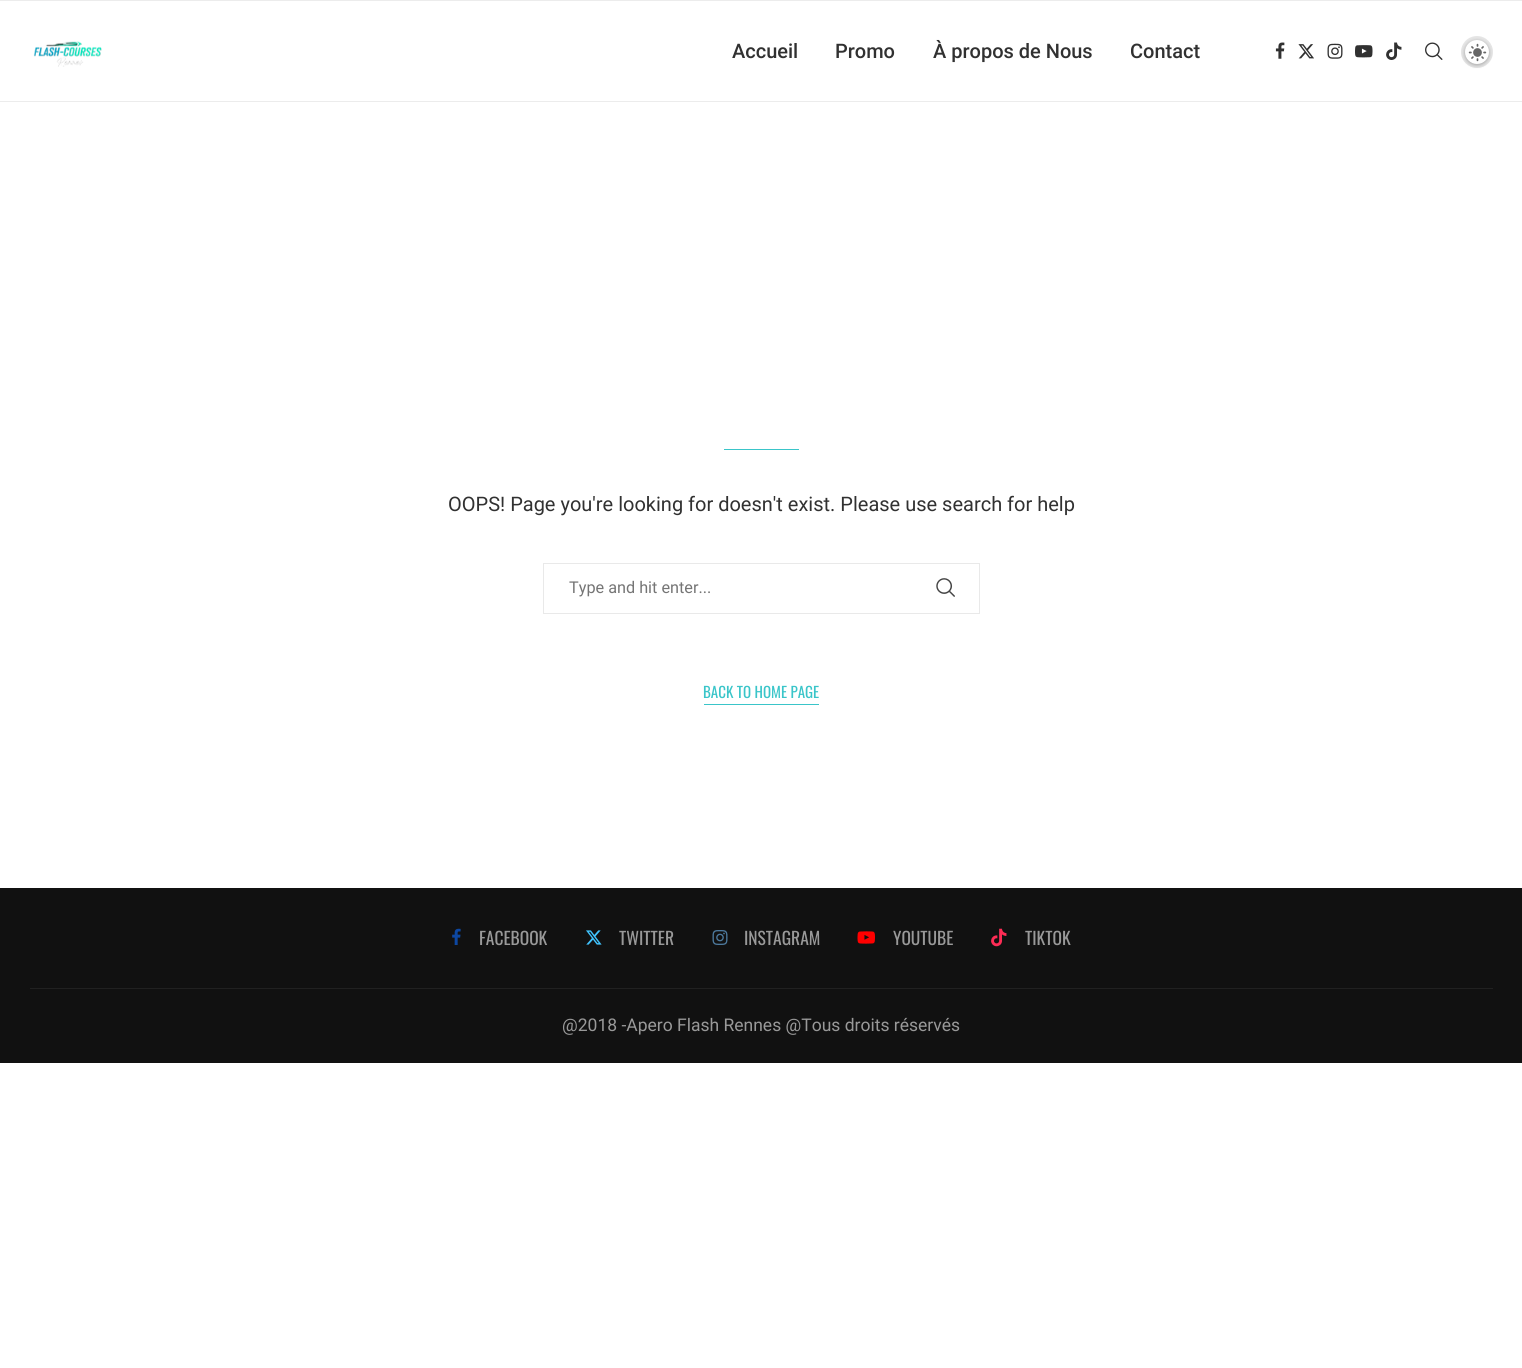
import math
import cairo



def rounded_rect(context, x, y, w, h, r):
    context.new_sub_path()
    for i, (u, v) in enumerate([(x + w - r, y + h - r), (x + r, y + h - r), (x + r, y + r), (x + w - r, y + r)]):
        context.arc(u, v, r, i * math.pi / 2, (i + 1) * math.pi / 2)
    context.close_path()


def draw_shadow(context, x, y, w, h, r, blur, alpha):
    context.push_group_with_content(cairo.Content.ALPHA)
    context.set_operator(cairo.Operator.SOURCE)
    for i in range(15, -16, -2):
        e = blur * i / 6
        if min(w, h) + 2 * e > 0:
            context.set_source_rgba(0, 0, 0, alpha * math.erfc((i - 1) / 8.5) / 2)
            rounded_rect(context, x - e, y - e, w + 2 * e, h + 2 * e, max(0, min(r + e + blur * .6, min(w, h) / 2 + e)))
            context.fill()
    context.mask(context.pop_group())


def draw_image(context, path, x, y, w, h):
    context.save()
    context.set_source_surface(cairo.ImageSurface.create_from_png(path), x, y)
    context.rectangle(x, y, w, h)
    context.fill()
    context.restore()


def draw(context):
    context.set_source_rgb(1, 1, 1)
    context.paint()
    context.set_source_rgb(236 / 255, 236 / 255, 236 / 255)
    context.rectangle(0, 0, 1522, 1)
    context.fill()
    context.rectangle(0, 101, 1522, 1)
    context.fill()
    draw_image(context, "images/1.png", 33, 41, 69, 26)
    draw_image(context, "images/2.png", 1275, 42, 10, 17)
    draw_image(context, "images/3.png", 1298, 44, 16, 15)
    draw_image(context, "images/4.png", 1327, 43, 16, 16)
    draw_image(context, "images/5.png", 1355, 45, 18, 13)
    draw_image(context, "images/6.png", 1386, 42, 16, 18)
    draw_image(context, "images/7.png", 1425, 42, 18, 18)
    context.set_source_rgb(230 / 255, 230 / 255, 230 / 255)
    context.arc(1477, 52, 16, 0, 2 * math.pi)
    context.fill()
    context.set_source_rgb(0, 0, 0)
    draw_shadow(context, 1465, 41, 24, 24, 12, 2, 0.3)
    context.set_source_rgb(1, 1, 1)
    context.arc(1477, 52, 12, 0, 2 * math.pi)
    context.fill()
    draw_image(context, "images/8.png", 1468, 43, 19, 19)
    context.set_source_rgb(58 / 255, 197 / 255, 201 / 255)
    context.rectangle(724, 449, 75, 1)
    context.fill()
    context.rectangle(543.5, 563.5, 436, 50)
    context.set_source_rgb(233 / 255, 233 / 255, 233 / 255)
    context.set_line_width(1)
    context.stroke()
    draw_image(context, "images/9.png", 936, 578, 19, 19)
    context.set_source_rgb(58 / 255, 197 / 255, 201 / 255)
    context.rectangle(704, 704, 115, 1)
    context.fill()
    context.set_source_rgb(17 / 255, 17 / 255, 17 / 255)
    context.rectangle(0, 888, 1522, 175)
    context.fill()
    context.set_source_rgb(33 / 255, 33 / 255, 33 / 255)
    context.rectangle(30, 988, 1463, 1)
    context.fill()
    draw_image(context, "images/10.png", 452, 928, 9, 17)
    draw_image(context, "images/11.png", 586, 930, 16, 15)
    draw_image(context, "images/12.png", 712, 930, 16, 15)
    draw_image(context, "images/13.png", 857, 931, 18, 13)
    draw_image(context, "images/14.png", 991, 928, 16, 19)
    context.select_font_face("Roboto Medium")
    context.set_font_size(20)
    context.set_source_rgb(49 / 255, 49 / 255, 49 / 255)
    context.move_to(732, 58)
    context.show_text("Accueil")
    context.move_to(835, 58)
    context.show_text("Promo")
    context.move_to(933, 58)
    context.show_text("À propos de Nous")
    context.move_to(1130, 58)
    context.show_text("Contact")
    context.select_font_face("Roboto")
    context.move_to(448, 511)
    context.show_text("OOPS! Page you're looking for doesn't exist. Please use search for help")
    context.set_font_size(16.25)
    context.set_source_rgb(117 / 255, 117 / 255, 117 / 255)
    context.move_to(569, 593)
    context.show_text("Type and hit enter...")
    context.select_font_face("Oswald")
    context.set_font_size(15)
    context.set_source_rgb(58 / 255, 197 / 255, 201 / 255)
    context.move_to(703, 698)
    context.show_text("BACK TO HOME PAGE")
    context.set_font_size(17.5)
    context.set_source_rgb(153 / 255, 153 / 255, 153 / 255)
    context.move_to(479, 945)
    context.show_text("FACEBOOK")
    context.move_to(619, 945)
    context.show_text("TWITTER")
    context.move_to(744, 945)
    context.show_text("INSTAGRAM")
    context.move_to(893, 945)
    context.show_text("YOUTUBE")
    context.move_to(1025, 945)
    context.show_text("TIKTOK")
    context.select_font_face("Roboto")
    context.move_to(562, 1031)
    context.show_text("@2018 -Apero Flash Rennes @Tous droits réservés")


surface = cairo.ImageSurface(cairo.Format.RGB24, 1522, 1368)
context = cairo.Context(surface)
options = cairo.FontOptions()
options.set_hint_metrics(cairo.HintMetrics.OFF)
options.set_hint_style(cairo.HintStyle.NONE)
context.set_font_options(options)
context.set_miter_limit(4)
draw(context)
surface.write_to_png("out.png")
